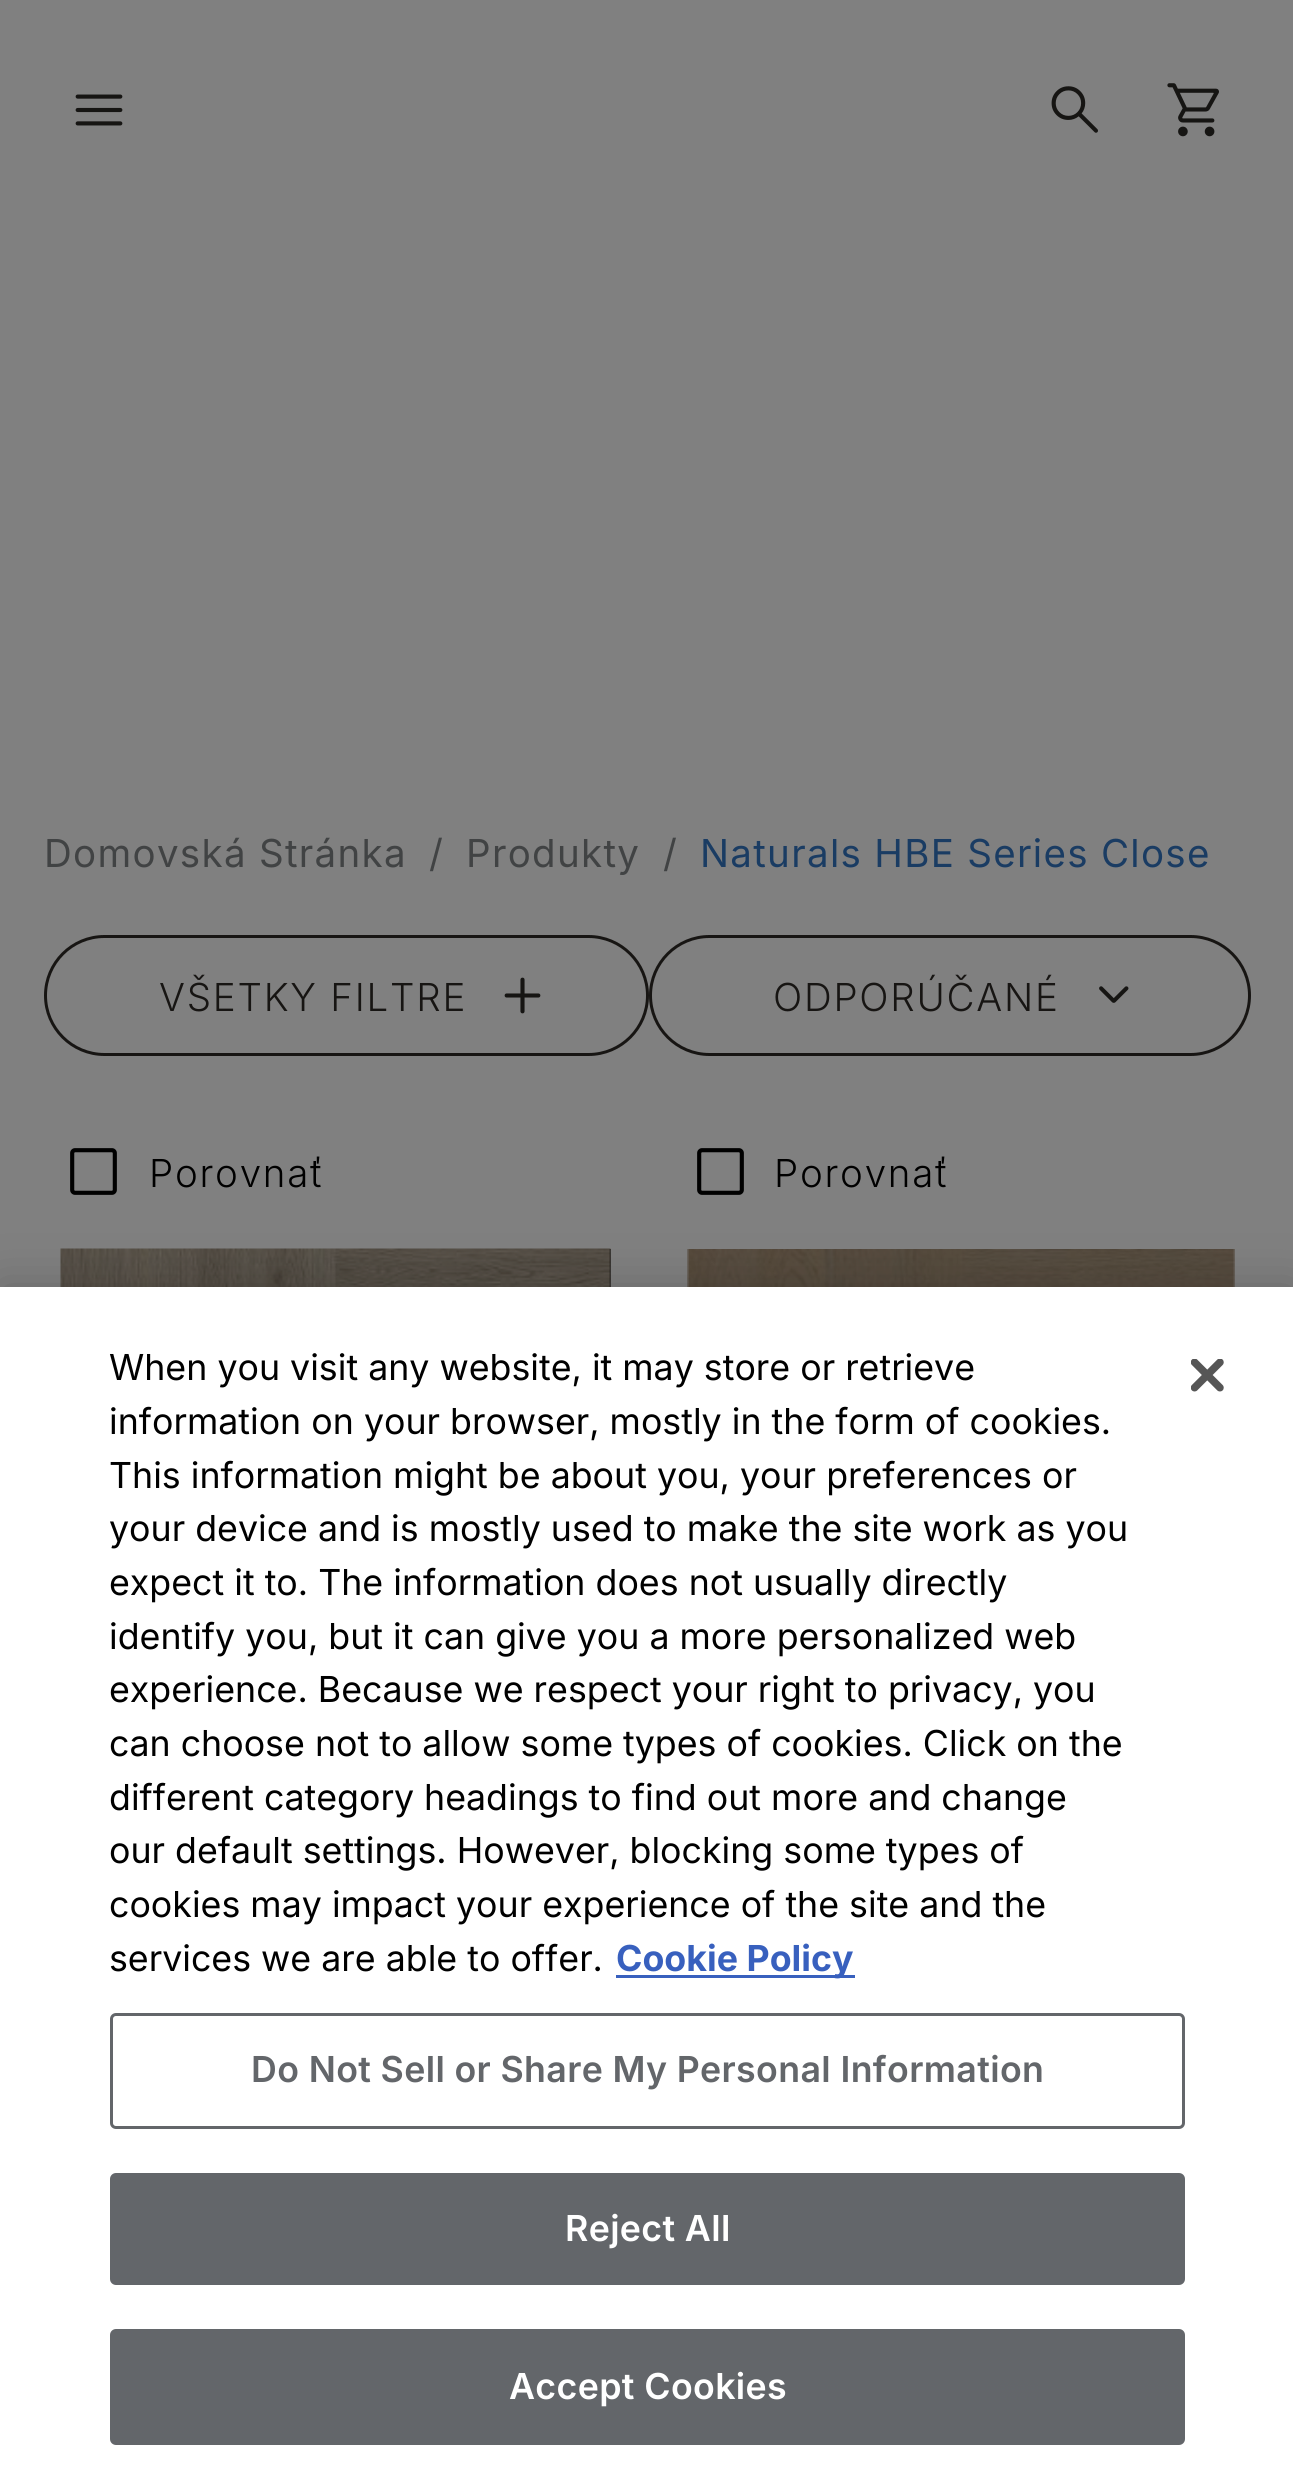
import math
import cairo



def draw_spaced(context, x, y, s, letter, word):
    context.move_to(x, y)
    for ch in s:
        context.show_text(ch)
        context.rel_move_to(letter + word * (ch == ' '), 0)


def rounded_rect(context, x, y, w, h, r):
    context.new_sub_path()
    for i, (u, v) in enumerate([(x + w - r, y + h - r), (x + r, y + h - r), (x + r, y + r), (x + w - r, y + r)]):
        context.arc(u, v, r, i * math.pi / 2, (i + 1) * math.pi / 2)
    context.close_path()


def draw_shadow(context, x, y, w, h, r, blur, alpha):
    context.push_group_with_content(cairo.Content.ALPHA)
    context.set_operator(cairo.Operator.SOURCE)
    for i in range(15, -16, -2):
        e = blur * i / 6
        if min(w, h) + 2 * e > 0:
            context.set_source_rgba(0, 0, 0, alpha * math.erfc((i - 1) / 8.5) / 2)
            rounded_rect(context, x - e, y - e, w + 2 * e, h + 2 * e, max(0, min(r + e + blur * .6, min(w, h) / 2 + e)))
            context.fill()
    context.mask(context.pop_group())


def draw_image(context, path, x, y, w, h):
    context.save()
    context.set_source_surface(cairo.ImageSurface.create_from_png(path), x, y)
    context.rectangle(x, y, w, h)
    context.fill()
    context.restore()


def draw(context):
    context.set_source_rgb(128 / 255, 128 / 255, 128 / 255)
    context.paint()
    draw_image(context, "images/1.png", 75, 94, 48, 32)
    draw_image(context, "images/2.png", 1051, 86, 47, 47)
    draw_image(context, "images/3.png", 1167, 83, 52, 54)
    rounded_rect(context, 45.5, 936.5, 602, 118, 59)
    context.set_source_rgb(23 / 255, 21 / 255, 19 / 255)
    context.set_line_width(3)
    context.stroke()
    draw_image(context, "images/4.png", 504, 977, 37, 37)
    rounded_rect(context, 650.5, 936.5, 599, 118, 59)
    context.stroke()
    draw_image(context, "images/5.png", 1099, 986, 30, 17)
    draw_image(context, "images/6.png", 70, 1148, 47, 47)
    draw_image(context, "images/7.png", 60, 1248, 551, 39)
    draw_image(context, "images/8.png", 609, 1249, 2, 38)
    draw_image(context, "images/6.png", 697, 1148, 47, 47)
    draw_image(context, "images/9.png", 687, 1249, 548, 38)
    context.set_source_rgb(0, 0, 0)
    draw_shadow(context, 0, 1287, 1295, 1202, 0, 25, 0.2)
    context.set_source_rgb(1, 1, 1)
    context.rectangle(0, 1287, 1293, 1200)
    context.fill()
    context.set_source_rgb(56 / 255, 96 / 255, 190 / 255)
    context.rectangle(616, 1975, 239, 3)
    context.fill()
    rounded_rect(context, 111.5, 2014.5, 1072, 113, 4.5)
    context.set_source_rgb(99 / 255, 102 / 255, 106 / 255)
    context.stroke()
    rounded_rect(context, 111.5, 2174.5, 1072, 109, 4.5)
    context.fill_preserve()
    context.stroke()
    rounded_rect(context, 111.5, 2330.5, 1072, 113, 4.5)
    context.fill_preserve()
    context.stroke()
    draw_image(context, "images/10.png", 1191, 1359, 33, 33)
    context.select_font_face("Inter")
    context.set_font_size(38.5)
    context.set_source_rgb(65 / 255, 67 / 255, 68 / 255)
    draw_spaced(context, 44, 867, "Domovská Stránka", 1.3, 0)
    draw_spaced(context, 429, 867, "/", 1.3, 0)
    draw_spaced(context, 466, 867, "Produkty", 1.3, 0)
    draw_spaced(context, 663, 867, "/", 1.3, 0)
    context.set_source_rgb(26 / 255, 60 / 255, 99 / 255)
    draw_spaced(context, 700, 867, "Naturals HBE Series Close", 1.3, 0)
    context.select_font_face("Inter Light")
    context.set_source_rgb(23 / 255, 21 / 255, 19 / 255)
    draw_spaced(context, 159, 1011, "VŠETKY FILTRE", 1.75, 0)
    draw_spaced(context, 773, 1011, "ODPORÚČANÉ", 1.75, 0)
    context.set_source_rgb(0, 0, 0)
    draw_spaced(context, 149, 1187, "Porovnať", 1.75, 0)
    draw_spaced(context, 774, 1187, "Porovnať", 1.75, 0)
    context.select_font_face("Inter")
    context.set_font_size(35.75)
    context.move_to(109, 1380)
    context.show_text("When you visit any website, it may store or retrieve")
    context.move_to(109, 1434)
    context.show_text("information on your browser, mostly in the form of cookies.")
    context.move_to(109, 1488)
    context.show_text("This information might be about you, your preferences or")
    context.move_to(109, 1541)
    context.show_text("your device and is mostly used to make the site work as you")
    context.move_to(109, 1595)
    context.show_text("expect it to. The information does not usually directly")
    context.move_to(109, 1649)
    context.show_text("identify you, but it can give you a more personalized web")
    context.move_to(109, 1702)
    context.show_text("experience. Because we respect your right to privacy, you")
    context.move_to(109, 1756)
    context.show_text("can choose not to allow some types of cookies. Click on the")
    context.move_to(109, 1810)
    context.show_text("different category headings to find out more and change")
    context.move_to(109, 1863)
    context.show_text("our default settings. However, blocking some types of")
    context.move_to(109, 1917)
    context.show_text("cookies may impact your experience of the site and the")
    context.move_to(109, 1971)
    context.show_text("services we are able to offer.")
    context.select_font_face("Inter", cairo.FontSlant.NORMAL, cairo.FontWeight.BOLD)
    context.set_source_rgb(56 / 255, 96 / 255, 190 / 255)
    context.move_to(616, 1971)
    context.show_text("Cookie Policy")
    context.select_font_face("Inter SemiBold")
    context.set_source_rgb(99 / 255, 102 / 255, 106 / 255)
    draw_spaced(context, 251, 2082, "Do Not Sell or Share My Personal Information", 0.35, 0)
    context.set_source_rgb(1, 1, 1)
    draw_spaced(context, 565, 2241, "Reject All", 0.35, 0)
    draw_spaced(context, 509, 2399, "Accept Cookies", 0.35, 0)


surface = cairo.ImageSurface(cairo.Format.RGB24, 1293, 2487)
context = cairo.Context(surface)
options = cairo.FontOptions()
options.set_hint_metrics(cairo.HintMetrics.OFF)
options.set_hint_style(cairo.HintStyle.NONE)
context.set_font_options(options)
context.set_miter_limit(4)
draw(context)
surface.write_to_png("out.png")
